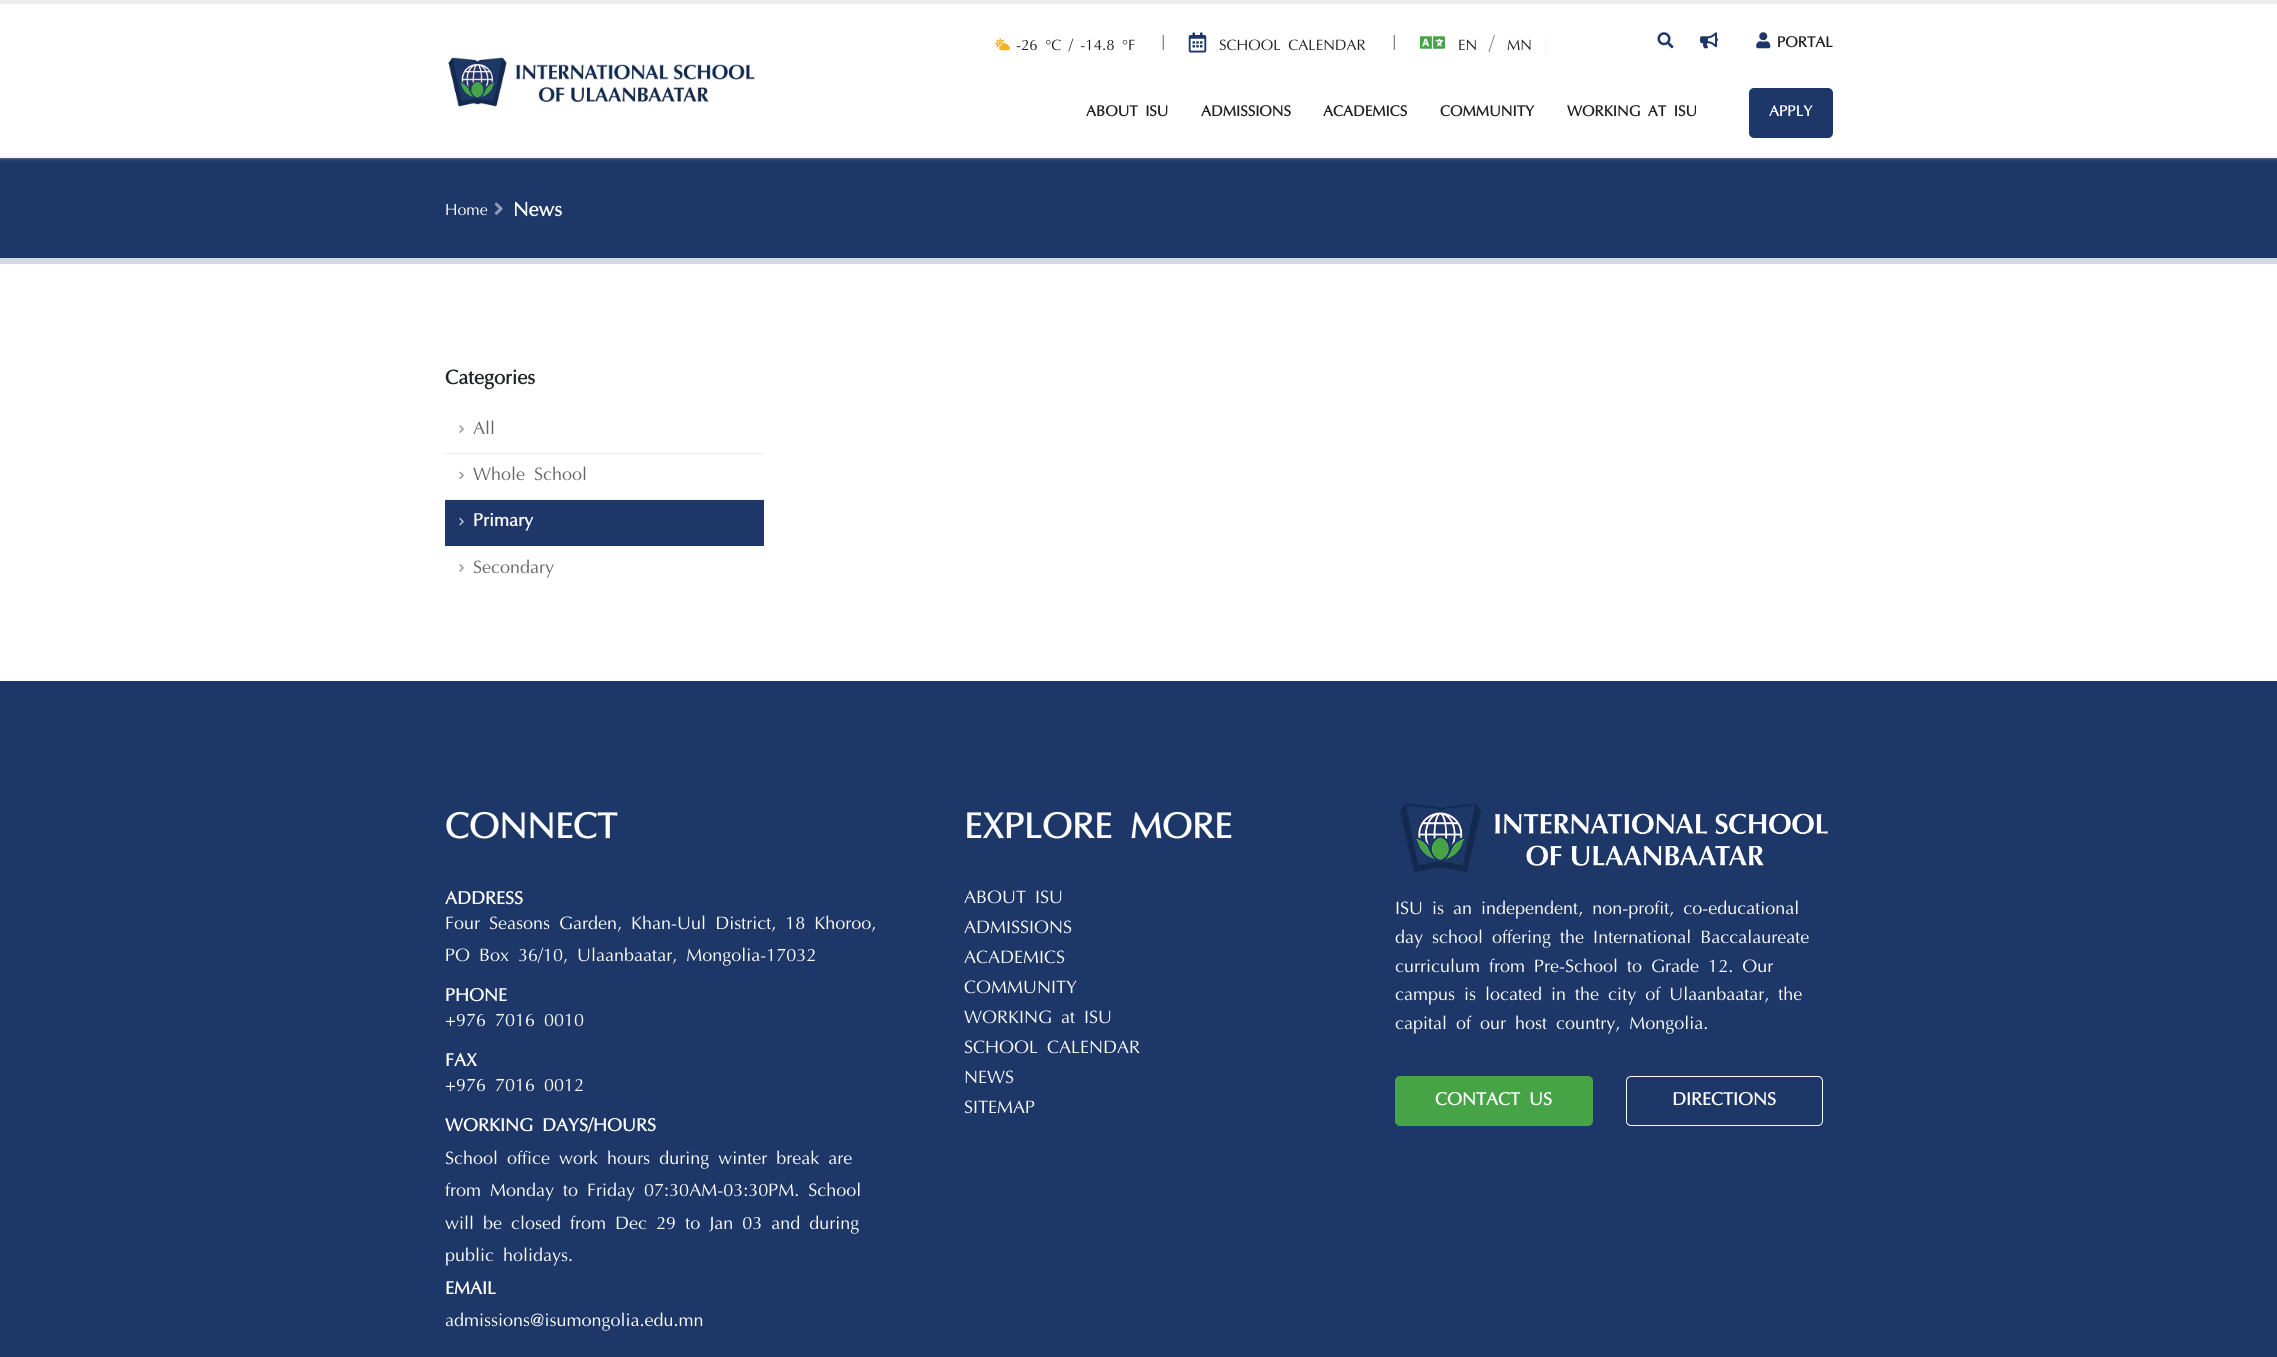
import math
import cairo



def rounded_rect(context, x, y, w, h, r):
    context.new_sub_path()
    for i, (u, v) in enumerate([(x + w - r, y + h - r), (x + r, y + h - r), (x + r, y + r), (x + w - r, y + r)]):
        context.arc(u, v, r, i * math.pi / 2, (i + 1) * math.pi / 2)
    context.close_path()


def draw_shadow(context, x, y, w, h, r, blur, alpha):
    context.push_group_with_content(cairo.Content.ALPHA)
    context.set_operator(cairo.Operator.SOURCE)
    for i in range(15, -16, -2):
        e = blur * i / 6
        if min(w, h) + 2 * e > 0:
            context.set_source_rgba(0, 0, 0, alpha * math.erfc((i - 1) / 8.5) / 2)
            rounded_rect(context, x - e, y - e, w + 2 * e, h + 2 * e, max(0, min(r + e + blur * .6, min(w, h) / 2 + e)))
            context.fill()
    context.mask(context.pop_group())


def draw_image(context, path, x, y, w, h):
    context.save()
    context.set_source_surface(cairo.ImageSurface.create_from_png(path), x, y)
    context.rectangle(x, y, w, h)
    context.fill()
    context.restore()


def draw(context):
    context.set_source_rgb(1, 1, 1)
    context.paint()
    context.set_source_rgb(29 / 255, 55 / 255, 104 / 255)
    context.rectangle(0, 158, 2277, 100)
    context.fill()
    context.set_source_rgb(234 / 255, 234 / 255, 234 / 255)
    draw_shadow(context, 0, 0, 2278, 158, 0, 2, 0.5)
    context.set_source_rgb(1, 1, 1)
    context.rectangle(0, 4, 2277, 154)
    context.fill()
    context.set_source_rgb(237 / 255, 237 / 255, 237 / 255)
    context.rectangle(0, 0, 2277, 4)
    context.fill()
    context.set_source_rgb(245 / 255, 245 / 255, 245 / 255)
    context.rectangle(0, 156, 2277, 1)
    context.fill()
    draw_image(context, "images/1.png", 448, 57, 307, 50)
    draw_image(context, "images/2.png", 995, 38, 15, 13)
    draw_image(context, "images/3.png", 1188, 32, 19, 21)
    draw_image(context, "images/4.png", 1420, 36, 25, 13)
    context.set_source_rgb(247 / 255, 247 / 255, 247 / 255)
    context.rectangle(1545, 36, 1, 20)
    context.fill()
    draw_image(context, "images/5.png", 1657, 32, 17, 17)
    draw_image(context, "images/6.png", 1700, 32, 18, 17)
    draw_image(context, "images/7.png", 1756, 32, 15, 17)
    context.set_source_rgb(29 / 255, 55 / 255, 104 / 255)
    rounded_rect(context, 1749, 88, 84, 50, 5)
    context.fill()
    draw_image(context, "images/8.png", 494, 202, 9, 13)
    context.set_source_rgb(210 / 255, 215 / 255, 225 / 255)
    context.rectangle(0, 258, 2277, 6)
    context.fill()
    context.set_source_rgb(240 / 255, 240 / 255, 240 / 255)
    context.rectangle(445, 453, 319, 1)
    context.fill()
    draw_image(context, "images/9.png", 459, 425, 5, 8)
    context.rectangle(445, 499, 319, 1)
    context.fill()
    draw_image(context, "images/10.png", 459, 471, 5, 9)
    context.set_source_rgb(30 / 255, 55 / 255, 104 / 255)
    context.rectangle(445, 500, 319, 45)
    context.fill()
    context.set_source_rgb(28 / 255, 52 / 255, 98 / 255)
    context.rectangle(445, 545, 319, 1)
    context.fill()
    draw_image(context, "images/11.png", 459, 517, 5, 9)
    draw_image(context, "images/12.png", 459, 564, 5, 8)
    context.set_source_rgb(29 / 255, 55 / 255, 104 / 255)
    context.rectangle(0, 681, 2277, 676)
    context.fill()
    draw_image(context, "images/13.png", 1399, 803, 429, 69)
    context.set_source_rgb(70 / 255, 164 / 255, 71 / 255)
    rounded_rect(context, 1395, 1076, 198, 50, 5)
    context.fill()
    rounded_rect(context, 1626.5, 1076.5, 196, 49, 4.5)
    context.set_source_rgb(1, 1, 1)
    context.set_line_width(1)
    context.stroke()
    context.select_font_face("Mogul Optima")
    context.set_font_size(15)
    context.set_source_rgb(31 / 255, 31 / 255, 31 / 255)
    context.move_to(1016, 50)
    context.show_text("-26 °C / -14.8 °F")
    context.set_font_size(20)
    context.set_source_rgb(128 / 255, 130 / 255, 133 / 255)
    context.move_to(1160, 50)
    context.show_text("|")
    context.set_font_size(15)
    context.set_source_rgb(31 / 255, 31 / 255, 31 / 255)
    context.move_to(1219, 50)
    context.show_text("SCHOOL CALENDAR")
    context.set_font_size(20)
    context.set_source_rgb(128 / 255, 130 / 255, 133 / 255)
    context.move_to(1391, 50)
    context.show_text("|")
    context.set_font_size(15)
    context.set_source_rgb(31 / 255, 31 / 255, 31 / 255)
    context.move_to(1458, 50)
    context.show_text("EN")
    context.set_font_size(20)
    context.set_source_rgb(128 / 255, 130 / 255, 133 / 255)
    context.move_to(1489, 50)
    context.show_text("/")
    context.set_font_size(15)
    context.set_source_rgb(31 / 255, 31 / 255, 31 / 255)
    context.move_to(1507, 50)
    context.show_text("MN")
    context.select_font_face("Mogul Optima", cairo.FontSlant.NORMAL, cairo.FontWeight.BOLD)
    context.move_to(1777, 47)
    context.show_text("PORTAL")
    context.move_to(1086, 116)
    context.show_text("ABOUT ISU")
    context.move_to(1201, 116)
    context.show_text("ADMISSIONS")
    context.move_to(1323, 116)
    context.show_text("ACADEMICS")
    context.move_to(1440, 116)
    context.show_text("COMMUNITY")
    context.move_to(1567, 116)
    context.show_text("WORKING AT ISU")
    context.set_source_rgb(1, 1, 1)
    context.move_to(1769, 116)
    context.show_text("APPLY")
    context.select_font_face("Mogul Optima")
    context.set_font_size(16)
    context.move_to(445, 215)
    context.show_text("Home")
    context.select_font_face("Mogul Optima", cairo.FontSlant.NORMAL, cairo.FontWeight.BOLD)
    context.set_font_size(20)
    context.move_to(513, 216)
    context.show_text("News")
    context.set_source_rgb(33 / 255, 37 / 255, 41 / 255)
    context.move_to(445, 384)
    context.show_text("Categories")
    context.select_font_face("Mogul Optima")
    context.set_font_size(18)
    context.set_source_rgb(102 / 255, 102 / 255, 102 / 255)
    context.move_to(473, 434)
    context.show_text("All")
    context.move_to(473, 480)
    context.show_text("Whole School")
    context.select_font_face("Mogul Optima", cairo.FontSlant.NORMAL, cairo.FontWeight.BOLD)
    context.set_source_rgb(1, 1, 1)
    context.move_to(473, 526)
    context.show_text("Primary")
    context.select_font_face("Mogul Optima")
    context.set_source_rgb(102 / 255, 102 / 255, 102 / 255)
    context.move_to(473, 573)
    context.show_text("Secondary")
    context.select_font_face("Mogul Optima", cairo.FontSlant.NORMAL, cairo.FontWeight.BOLD)
    context.set_font_size(36)
    context.set_source_rgb(1, 1, 1)
    context.move_to(445, 838)
    context.show_text("CONNECT")
    context.set_font_size(18)
    context.move_to(445, 904)
    context.show_text("ADDRESS")
    context.select_font_face("Mogul Optima")
    context.move_to(445, 929)
    context.show_text("Four Seasons Garden, Khan-Uul District, 18 Khoroo,")
    context.move_to(445, 961)
    context.show_text("PO Box 36/10, Ulaanbaatar, Mongolia-17032")
    context.select_font_face("Mogul Optima", cairo.FontSlant.NORMAL, cairo.FontWeight.BOLD)
    context.move_to(445, 1001)
    context.show_text("PHONE")
    context.select_font_face("Mogul Optima")
    context.move_to(445, 1026)
    context.show_text("+976 7016 0010")
    context.select_font_face("Mogul Optima", cairo.FontSlant.NORMAL, cairo.FontWeight.BOLD)
    context.move_to(445, 1066)
    context.show_text("FAX")
    context.select_font_face("Mogul Optima")
    context.move_to(445, 1091)
    context.show_text("+976 7016 0012")
    context.select_font_face("Mogul Optima", cairo.FontSlant.NORMAL, cairo.FontWeight.BOLD)
    context.move_to(445, 1131)
    context.show_text("WORKING DAYS/HOURS")
    context.select_font_face("Mogul Optima")
    context.move_to(445, 1164)
    context.show_text("School office work hours during winter break are")
    context.move_to(445, 1196)
    context.show_text("from Monday to Friday 07:30AM-03:30PM. School")
    context.move_to(445, 1229)
    context.show_text("will be closed from Dec 29 to Jan 03 and during")
    context.move_to(445, 1261)
    context.show_text("public holidays.")
    context.select_font_face("Mogul Optima", cairo.FontSlant.NORMAL, cairo.FontWeight.BOLD)
    context.move_to(445, 1294)
    context.show_text("EMAIL")
    context.select_font_face("Mogul Optima")
    context.move_to(445, 1326)
    context.show_text("admissions@isumongolia.edu.mn")
    context.select_font_face("Mogul Optima", cairo.FontSlant.NORMAL, cairo.FontWeight.BOLD)
    context.set_font_size(36)
    context.move_to(964, 838)
    context.show_text("EXPLORE MORE")
    context.select_font_face("Mogul Optima")
    context.set_font_size(18)
    context.move_to(964, 903)
    context.show_text("ABOUT ISU")
    context.move_to(964, 933)
    context.show_text("ADMISSIONS")
    context.move_to(964, 963)
    context.show_text("ACADEMICS")
    context.move_to(964, 993)
    context.show_text("COMMUNITY")
    context.move_to(964, 1023)
    context.show_text("WORKING at ISU")
    context.move_to(964, 1053)
    context.show_text("SCHOOL CALENDAR")
    context.move_to(964, 1083)
    context.show_text("NEWS")
    context.move_to(964, 1113)
    context.show_text("SITEMAP")
    context.move_to(1395, 914)
    context.show_text("ISU is an independent, non-profit, co-educational")
    context.move_to(1395, 943)
    context.show_text("day school offering the International Baccalaureate")
    context.move_to(1395, 972)
    context.show_text("curriculum from Pre-School to Grade 12. Our")
    context.move_to(1395, 1000)
    context.show_text("campus is located in the city of Ulaanbaatar, the")
    context.move_to(1395, 1029)
    context.show_text("capital of our host country, Mongolia.")
    context.select_font_face("Mogul Optima", cairo.FontSlant.NORMAL, cairo.FontWeight.BOLD)
    context.move_to(1435, 1105)
    context.show_text("CONTACT US")
    context.move_to(1672, 1105)
    context.show_text("DIRECTIONS")


surface = cairo.ImageSurface(cairo.Format.RGB24, 2277, 1357)
context = cairo.Context(surface)
options = cairo.FontOptions()
options.set_hint_metrics(cairo.HintMetrics.OFF)
options.set_hint_style(cairo.HintStyle.NONE)
context.set_font_options(options)
context.set_miter_limit(4)
draw(context)
surface.write_to_png("out.png")
